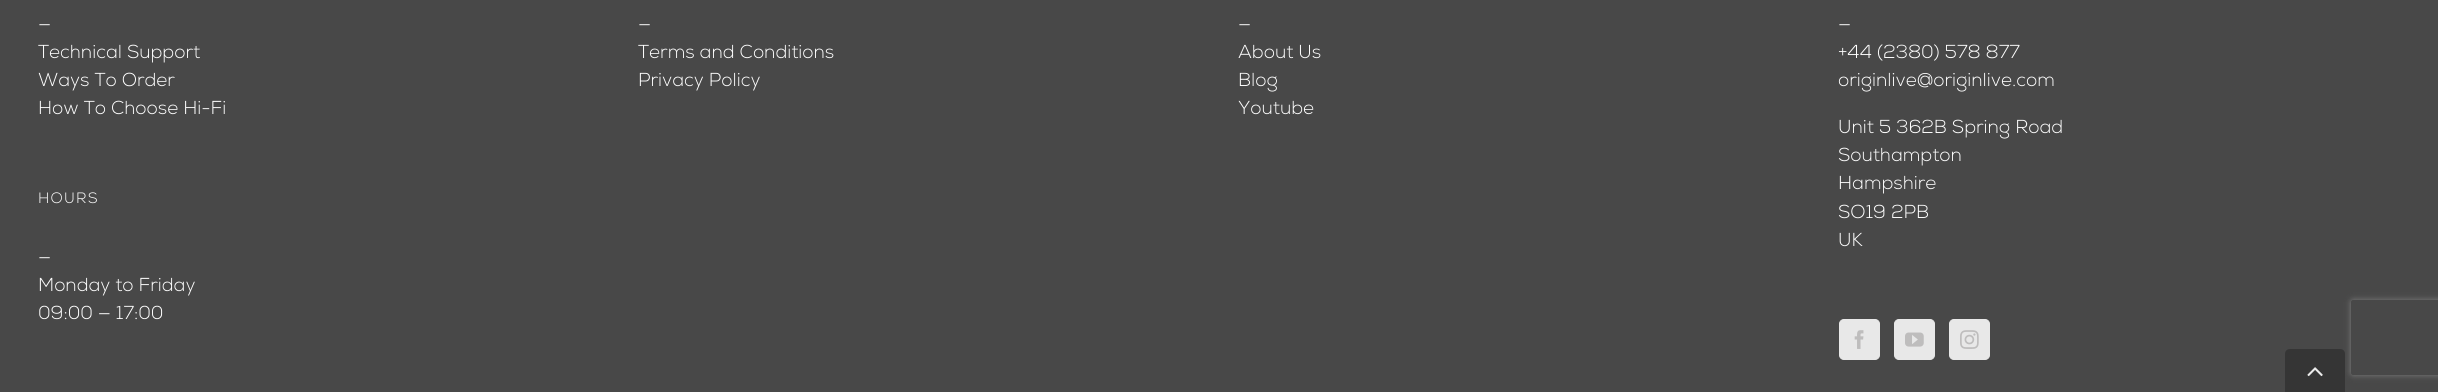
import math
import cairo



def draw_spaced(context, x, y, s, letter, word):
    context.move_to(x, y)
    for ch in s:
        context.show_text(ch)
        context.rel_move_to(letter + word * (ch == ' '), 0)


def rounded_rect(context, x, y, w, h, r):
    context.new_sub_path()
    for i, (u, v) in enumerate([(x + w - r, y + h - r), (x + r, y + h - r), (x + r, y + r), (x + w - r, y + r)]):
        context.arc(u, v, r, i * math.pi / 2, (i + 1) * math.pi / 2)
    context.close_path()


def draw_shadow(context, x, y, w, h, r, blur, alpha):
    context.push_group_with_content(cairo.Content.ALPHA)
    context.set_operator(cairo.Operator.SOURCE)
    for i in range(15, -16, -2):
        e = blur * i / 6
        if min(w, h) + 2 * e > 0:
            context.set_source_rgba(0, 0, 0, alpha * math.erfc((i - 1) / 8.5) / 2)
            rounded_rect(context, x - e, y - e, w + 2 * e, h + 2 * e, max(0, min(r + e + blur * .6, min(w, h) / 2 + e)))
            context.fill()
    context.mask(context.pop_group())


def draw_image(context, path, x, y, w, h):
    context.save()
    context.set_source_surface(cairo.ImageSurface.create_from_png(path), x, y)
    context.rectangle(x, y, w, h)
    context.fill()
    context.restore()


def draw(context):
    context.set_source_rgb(72 / 255, 72 / 255, 72 / 255)
    context.paint()
    context.set_source_rgb(232 / 255, 232 / 255, 232 / 255)
    rounded_rect(context, 1839.5, 319.5, 40, 40, 4.5)
    context.fill_preserve()
    context.set_line_width(1)
    context.stroke()
    draw_image(context, "images/1.png", 1854, 330, 10, 19)
    rounded_rect(context, 1894.5, 319.5, 40, 40, 4.5)
    context.fill_preserve()
    context.stroke()
    draw_image(context, "images/2.png", 1905, 332, 19, 15)
    rounded_rect(context, 1949.5, 319.5, 40, 40, 4.5)
    context.fill_preserve()
    context.stroke()
    draw_image(context, "images/3.png", 1960, 330, 19, 19)
    context.save()
    context.set_fill_rule(cairo.FillRule.EVEN_ODD)
    context.new_path()
    context.move_to(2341, 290)
    context.line_to(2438, 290)
    context.line_to(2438, 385)
    context.line_to(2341, 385)
    context.close_path()
    context.move_to(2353.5, 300)
    context.line_to(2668.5, 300)
    context.curve_to(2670, 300, 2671, 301, 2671, 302.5)
    context.line_to(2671, 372.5)
    context.curve_to(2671, 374, 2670, 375, 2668.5, 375)
    context.line_to(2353.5, 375)
    context.curve_to(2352, 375, 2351, 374, 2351, 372.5)
    context.line_to(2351, 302.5)
    context.curve_to(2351, 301, 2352, 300, 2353.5, 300)
    context.close_path()
    context.clip()
    context.set_source_rgb(128 / 255, 128 / 255, 128 / 255)
    draw_shadow(context, 2351, 300, 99, 75, 2.5, 3, 1)
    context.restore()
    context.set_source_rgb(53 / 255, 53 / 255, 53 / 255)
    context.new_path()
    context.move_to(2290, 349)
    context.line_to(2340, 349)
    context.curve_to(2343, 349, 2345, 351, 2345, 354)
    context.line_to(2345, 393)
    context.line_to(2285, 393)
    context.line_to(2285, 354)
    context.curve_to(2285, 351, 2287, 349, 2290, 349)
    context.close_path()
    context.fill()
    draw_image(context, "images/4.png", 2307, 367, 16, 10)
    context.select_font_face("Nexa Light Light")
    context.set_font_size(18.75)
    context.set_source_rgb(1, 1, 1)
    context.move_to(38, 30)
    context.show_text("—")
    context.move_to(38, 58)
    context.show_text("Technical Support")
    context.move_to(38, 86)
    context.show_text("Ways To Order")
    context.move_to(38, 114)
    context.show_text("How To Choose Hi-Fi")
    context.set_font_size(15)
    draw_spaced(context, 38, 203, "HOURS", 1.25, 0)
    context.set_font_size(18.75)
    context.move_to(38, 263)
    context.show_text("—")
    context.move_to(38, 291)
    context.show_text("Monday to Friday")
    context.move_to(38, 319)
    context.show_text("09:00 — 17:00")
    context.move_to(638, 30)
    context.show_text("—")
    context.move_to(638, 58)
    context.show_text("Terms and Conditions")
    context.move_to(638, 86)
    context.show_text("Privacy Policy")
    context.move_to(1238, 30)
    context.show_text("—")
    context.move_to(1238, 58)
    context.show_text("About Us")
    context.move_to(1238, 86)
    context.show_text("Blog")
    context.move_to(1238, 114)
    context.show_text("Youtube")
    context.move_to(1838, 30)
    context.show_text("—")
    context.move_to(1838, 58)
    context.show_text("+44 (2380) 578 877")
    context.move_to(1838, 86)
    context.show_text("originlive@originlive.com")
    context.move_to(1838, 133)
    context.show_text("Unit 5 362B Spring Road")
    context.move_to(1838, 161)
    context.show_text("Southampton")
    context.move_to(1838, 189)
    context.show_text("Hampshire")
    context.move_to(1838, 218)
    context.show_text("SO19 2PB")
    context.move_to(1838, 246)
    context.show_text("UK")


surface = cairo.ImageSurface(cairo.Format.RGB24, 2438, 392)
context = cairo.Context(surface)
options = cairo.FontOptions()
options.set_hint_metrics(cairo.HintMetrics.OFF)
options.set_hint_style(cairo.HintStyle.NONE)
context.set_font_options(options)
context.set_miter_limit(4)
draw(context)
surface.write_to_png("out.png")
